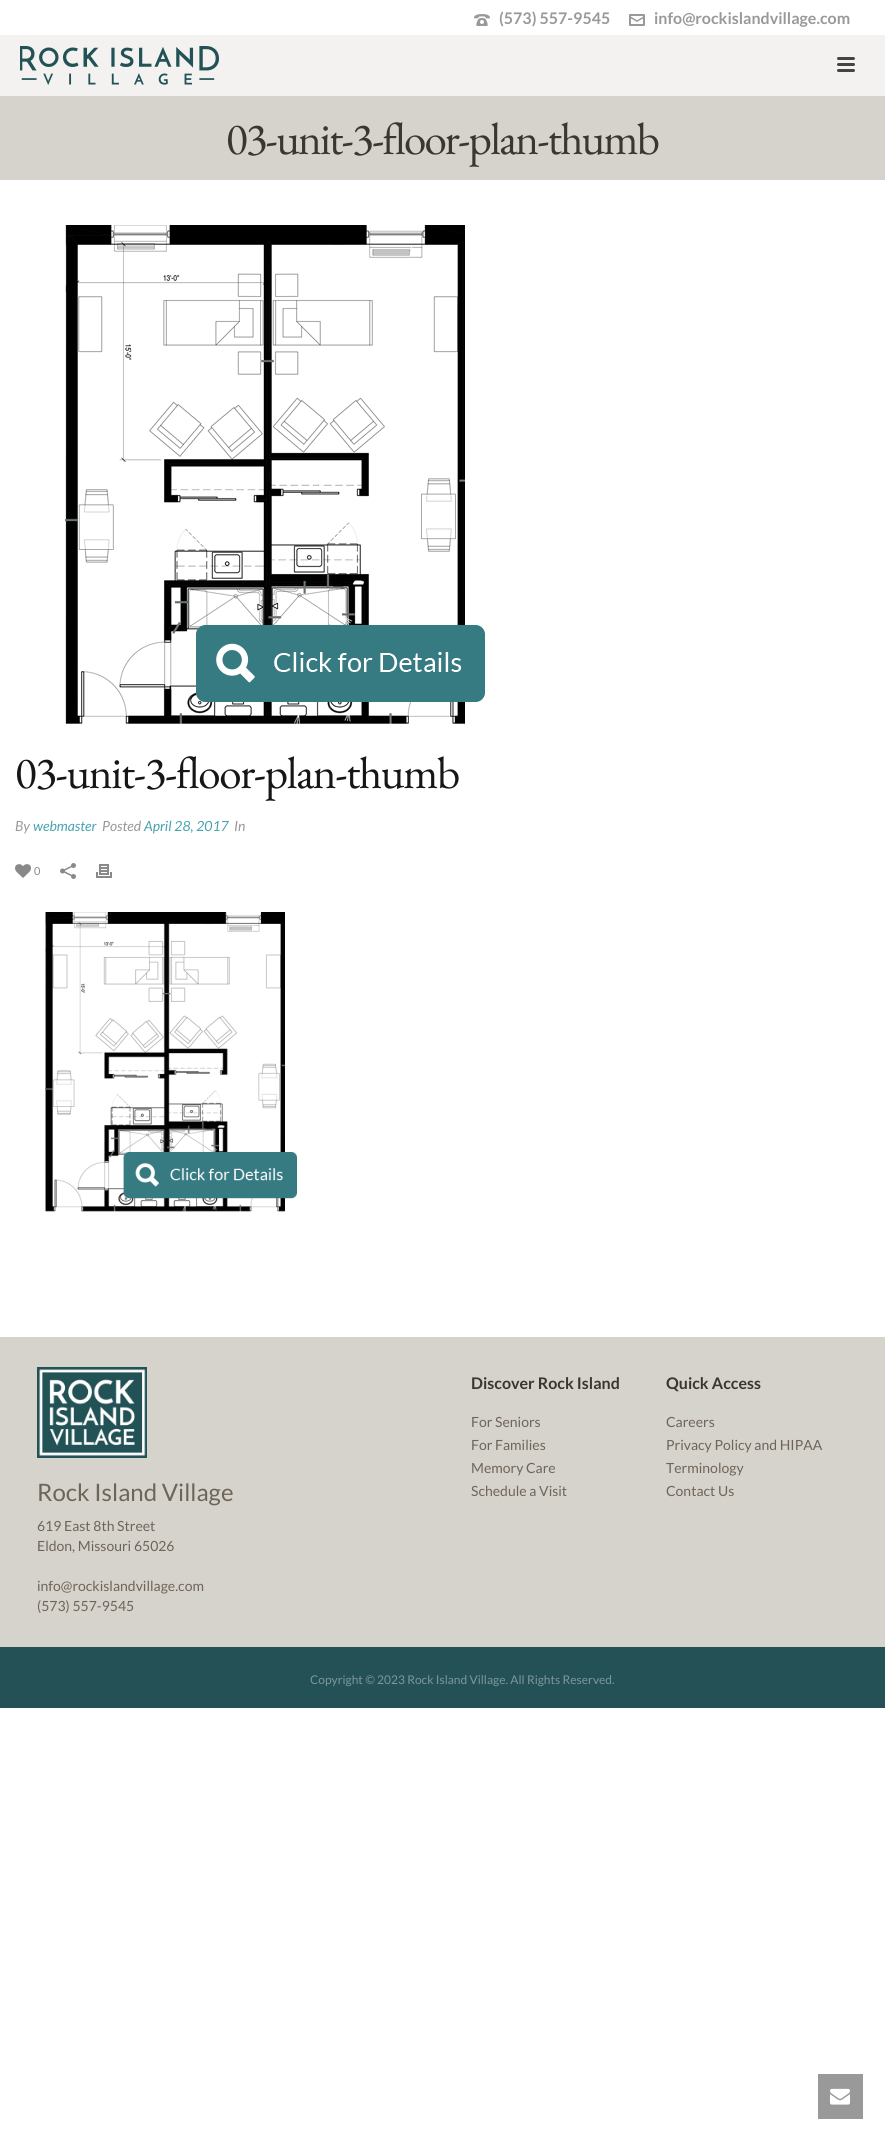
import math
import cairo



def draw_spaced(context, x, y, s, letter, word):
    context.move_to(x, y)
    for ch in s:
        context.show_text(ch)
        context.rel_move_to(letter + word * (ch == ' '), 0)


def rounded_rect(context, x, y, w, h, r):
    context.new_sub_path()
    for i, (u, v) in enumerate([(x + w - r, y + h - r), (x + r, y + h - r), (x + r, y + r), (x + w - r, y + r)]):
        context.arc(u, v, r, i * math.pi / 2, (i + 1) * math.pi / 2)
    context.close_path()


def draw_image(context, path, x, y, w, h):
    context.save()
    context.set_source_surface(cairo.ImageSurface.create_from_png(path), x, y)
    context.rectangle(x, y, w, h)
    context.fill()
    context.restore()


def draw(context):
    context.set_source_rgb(1, 1, 1)
    context.paint()
    draw_image(context, "images/1.png", 474, 14, 16, 12)
    draw_image(context, "images/2.png", 629, 14, 16, 12)
    context.set_source_rgb(243 / 255, 242 / 255, 240 / 255)
    context.rectangle(0, 35, 885, 61)
    context.fill()
    draw_image(context, "images/3.png", 20, 46, 199, 39)
    context.set_source_rgb(68 / 255, 68 / 255, 68 / 255)
    rounded_rect(context, 837, 57, 18, 3, 1.5)
    context.fill()
    rounded_rect(context, 837, 63, 18, 3, 1.5)
    context.fill()
    rounded_rect(context, 837, 69, 18, 3, 1.5)
    context.fill()
    context.set_source_rgb(214 / 255, 210 / 255, 204 / 255)
    context.rectangle(0, 96, 885, 84)
    context.fill()
    draw_image(context, "images/4.png", 65, 225, 420, 499)
    draw_image(context, "images/5.png", 15, 864, 16, 14)
    draw_image(context, "images/6.png", 60, 863, 16, 16)
    draw_image(context, "images/7.png", 96, 864, 16, 14)
    draw_image(context, "images/8.png", 45, 912, 252, 300)
    context.rectangle(0, 1337, 885, 310)
    context.fill()
    draw_image(context, "images/9.png", 37, 1367, 110, 91)
    context.set_source_rgb(36 / 255, 81 / 255, 86 / 255)
    context.rectangle(0, 1647, 885, 61)
    context.fill()
    context.set_source_rgb(153 / 255, 153 / 255, 153 / 255)
    context.rectangle(818, 2074, 45, 45)
    context.fill()
    draw_image(context, "images/10.png", 830, 2088, 20, 17)
    context.select_font_face("Lato", cairo.FontSlant.NORMAL, cairo.FontWeight.BOLD)
    context.set_font_size(16)
    context.move_to(499, 24)
    context.show_text("(573) 557-9545")
    context.move_to(654, 24)
    context.show_text("info@rockislandvillage.com")
    context.select_font_face("EB Garamond")
    context.set_font_size(45)
    context.set_source_rgb(59 / 255, 54 / 255, 47 / 255)
    draw_spaced(context, 226, 154, "03-unit-3-floor-plan-thumb", -1.8, 0)
    context.set_source_rgb(20 / 255, 23 / 255, 22 / 255)
    draw_spaced(context, 15, 788, "03-unit-3-floor-plan-thumb", -1.35, 0)
    context.select_font_face("Lato", cairo.FontSlant.ITALIC)
    context.set_font_size(14)
    context.set_source_rgb(153 / 255, 153 / 255, 153 / 255)
    context.move_to(15, 831)
    context.show_text("By")
    context.set_source_rgb(73 / 255, 163 / 255, 174 / 255)
    context.move_to(33, 831)
    context.show_text("webmaster")
    context.set_source_rgb(153 / 255, 153 / 255, 153 / 255)
    context.move_to(102, 831)
    context.show_text("Posted")
    context.set_source_rgb(73 / 255, 163 / 255, 174 / 255)
    context.move_to(144, 831)
    context.show_text("April 28, 2017")
    context.set_source_rgb(153 / 255, 153 / 255, 153 / 255)
    context.move_to(234, 831)
    context.show_text("In")
    context.select_font_face("Lato")
    context.set_font_size(11)
    context.set_source_rgb(137 / 255, 137 / 255, 137 / 255)
    context.move_to(34, 875)
    context.show_text("0")
    context.select_font_face("Lato", cairo.FontSlant.NORMAL, cairo.FontWeight.BOLD)
    context.set_font_size(16)
    context.set_source_rgb(59 / 255, 54 / 255, 47 / 255)
    context.move_to(471, 1389)
    context.show_text("Discover Rock Island")
    context.select_font_face("Lato")
    context.set_font_size(14)
    context.set_source_rgb(110 / 255, 101 / 255, 89 / 255)
    context.move_to(471, 1427)
    context.show_text("For Seniors")
    context.move_to(471, 1450)
    context.show_text("For Families")
    context.move_to(471, 1473)
    context.show_text("Memory Care")
    context.move_to(471, 1496)
    context.show_text("Schedule a Visit")
    context.select_font_face("Lato", cairo.FontSlant.NORMAL, cairo.FontWeight.BOLD)
    context.set_font_size(16)
    context.set_source_rgb(59 / 255, 54 / 255, 47 / 255)
    context.move_to(666, 1389)
    context.show_text("Quick Access")
    context.select_font_face("Lato")
    context.set_font_size(14)
    context.set_source_rgb(110 / 255, 101 / 255, 89 / 255)
    context.move_to(666, 1427)
    context.show_text("Careers")
    context.move_to(666, 1450)
    context.show_text("Privacy Policy and HIPAA")
    context.move_to(666, 1473)
    context.show_text("Terminology")
    context.move_to(666, 1496)
    context.show_text("Contact Us")
    context.set_font_size(24)
    context.move_to(37, 1501)
    context.show_text("Rock Island Village")
    context.set_font_size(14)
    context.move_to(37, 1531)
    context.show_text("619 East 8th Street")
    context.move_to(37, 1551)
    context.show_text("Eldon, Missouri 65026")
    context.move_to(37, 1591)
    context.show_text("info@rockislandvillage.com")
    context.move_to(37, 1611)
    context.show_text("(573) 557-9545")
    context.set_font_size(12)
    context.set_source_rgb(124 / 255, 151 / 255, 154 / 255)
    context.move_to(310, 1684)
    context.show_text("Copyright © 2023 Rock Island Village. All Rights Reserved.")


surface = cairo.ImageSurface(cairo.Format.RGB24, 885, 2134)
context = cairo.Context(surface)
options = cairo.FontOptions()
options.set_hint_metrics(cairo.HintMetrics.OFF)
options.set_hint_style(cairo.HintStyle.NONE)
context.set_font_options(options)
context.set_miter_limit(4)
draw(context)
surface.write_to_png("out.png")
